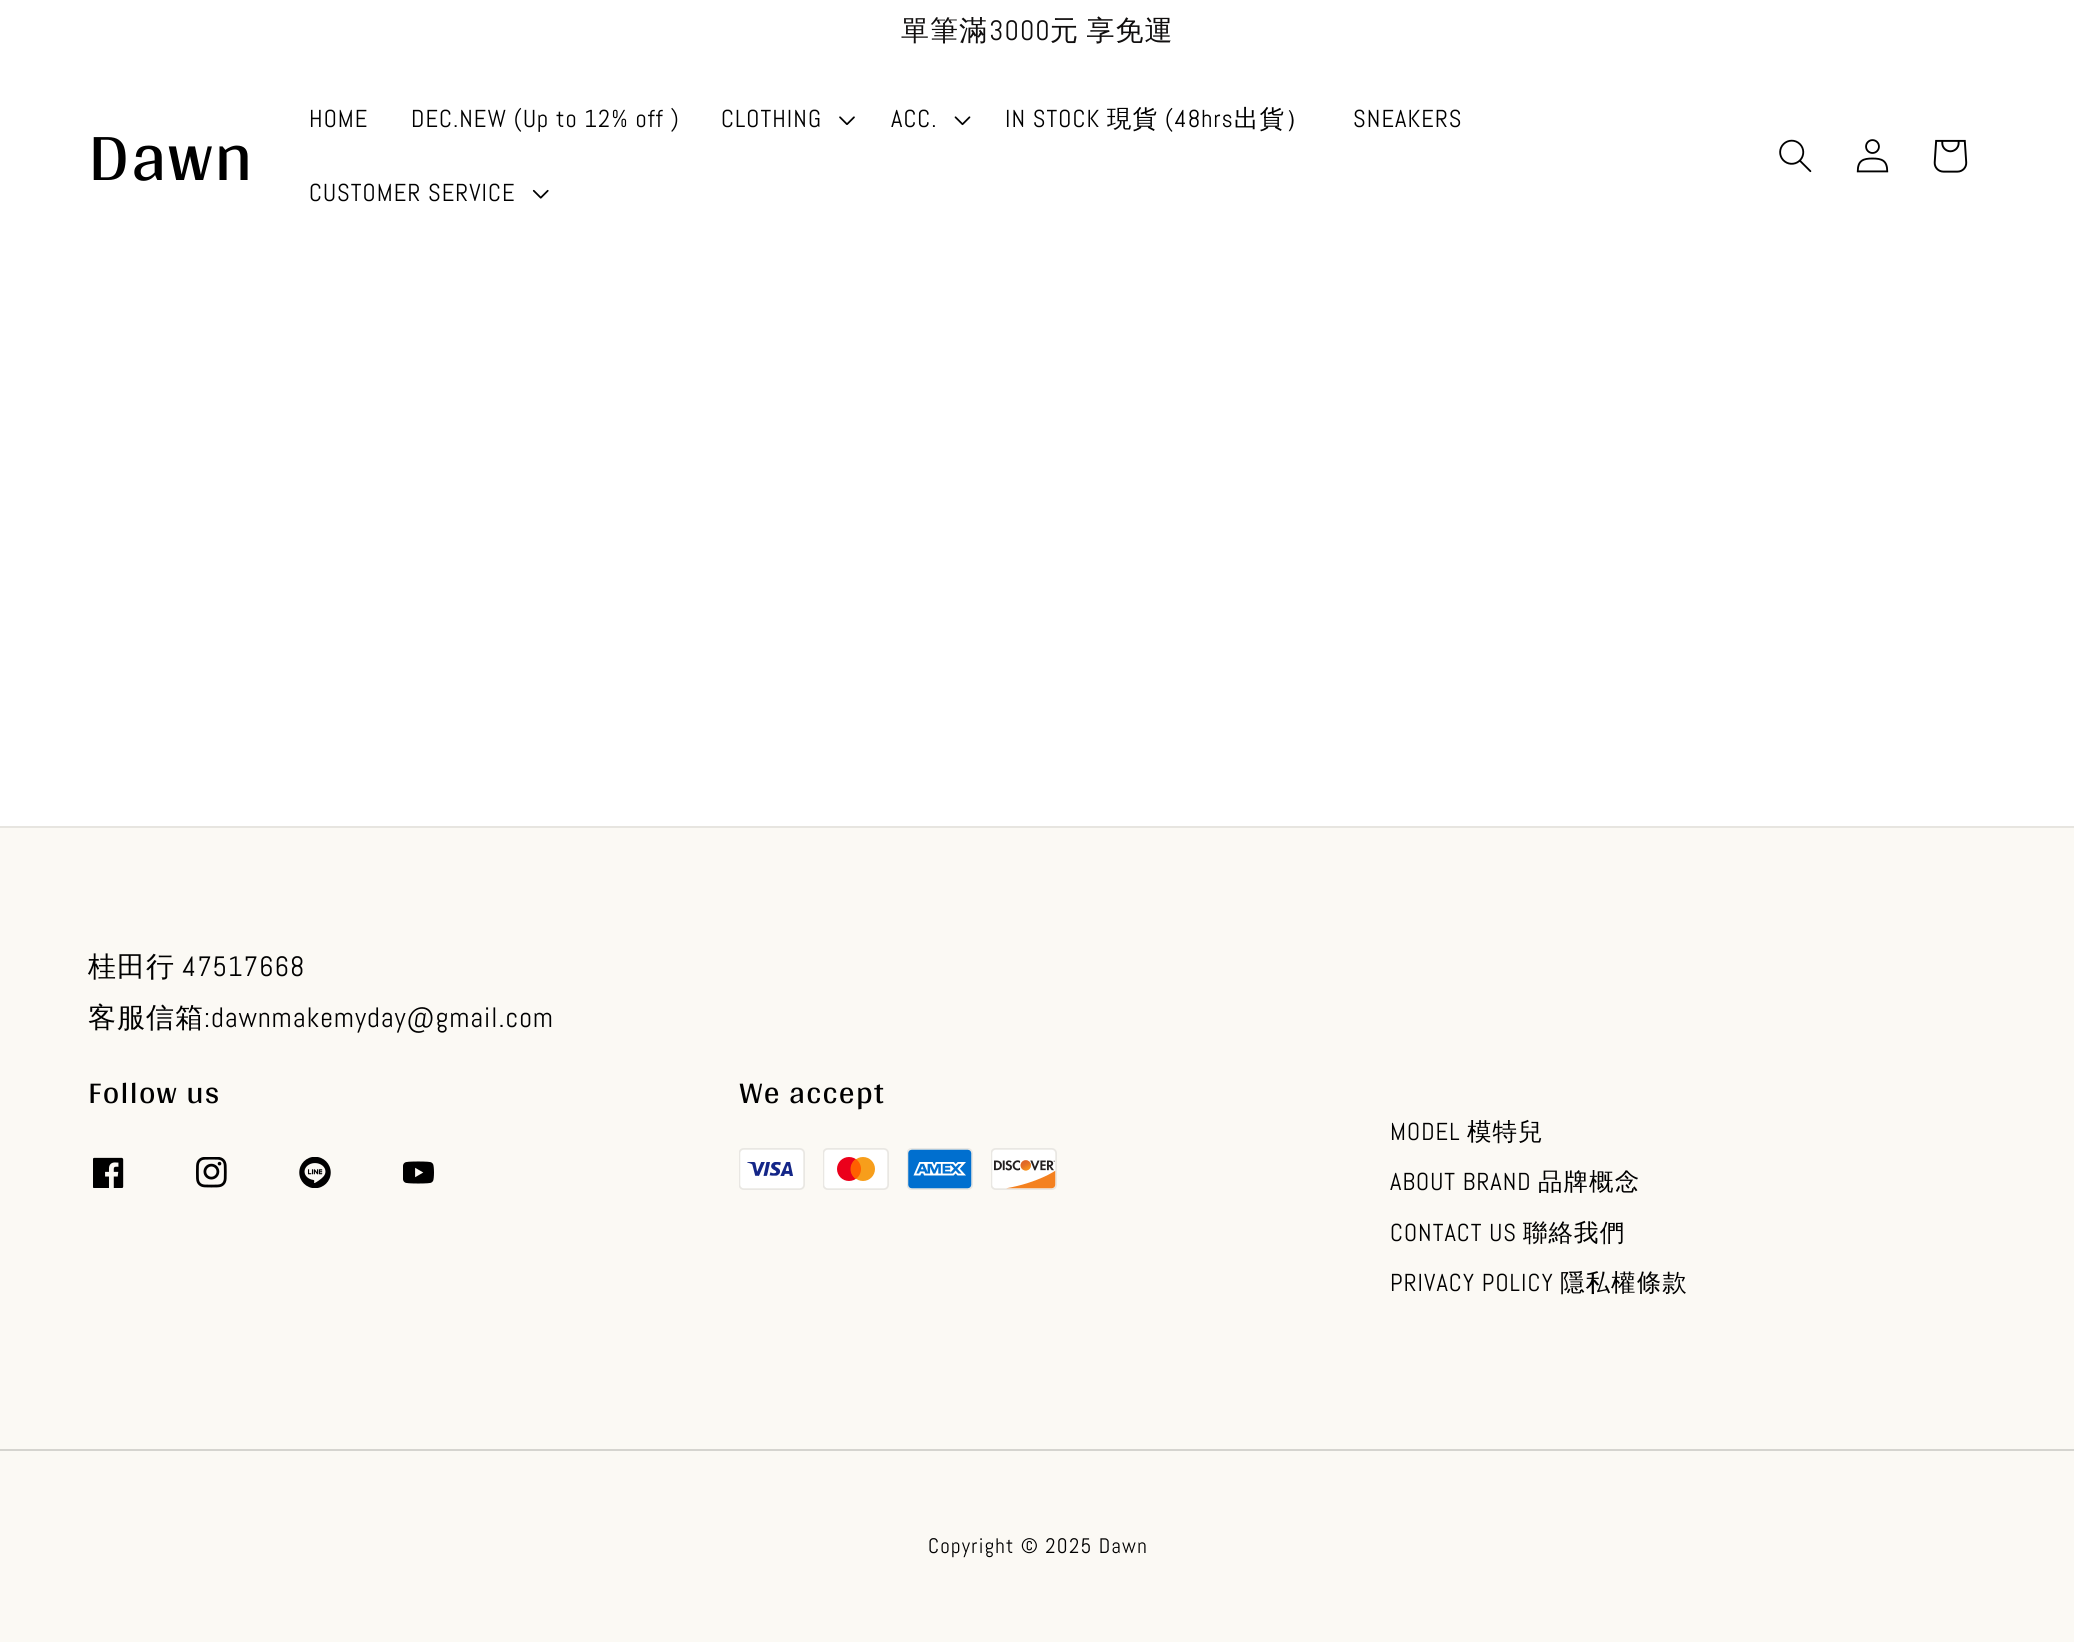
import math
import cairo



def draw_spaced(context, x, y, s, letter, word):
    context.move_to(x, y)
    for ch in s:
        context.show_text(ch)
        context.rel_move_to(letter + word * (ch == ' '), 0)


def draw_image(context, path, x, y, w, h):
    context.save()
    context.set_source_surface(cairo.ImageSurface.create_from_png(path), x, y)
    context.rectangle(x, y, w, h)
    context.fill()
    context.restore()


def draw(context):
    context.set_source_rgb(1, 1, 1)
    context.paint()
    draw_image(context, "images/1.png", 839, 116, 16, 9)
    draw_image(context, "images/2.png", 954, 116, 17, 10)
    draw_image(context, "images/3.png", 532, 189, 17, 10)
    draw_image(context, "images/4.png", 1779, 139, 33, 34)
    draw_image(context, "images/5.png", 1856, 139, 33, 34)
    draw_image(context, "images/6.png", 1933, 139, 35, 34)
    context.set_source_rgb(251 / 255, 249 / 255, 244 / 255)
    context.rectangle(0, 828, 2074, 814)
    context.fill()
    context.set_source_rgb(231 / 255, 229 / 255, 224 / 255)
    context.rectangle(0, 826, 2074, 2)
    context.fill()
    draw_image(context, "images/7.png", 93, 1157, 31, 31)
    draw_image(context, "images/8.png", 196, 1157, 31, 31)
    draw_image(context, "images/9.png", 299, 1157, 32, 31)
    draw_image(context, "images/10.png", 403, 1161, 31, 23)
    draw_image(context, "images/11.png", 739, 1148, 66, 42)
    draw_image(context, "images/12.png", 823, 1148, 66, 42)
    draw_image(context, "images/13.png", 907, 1148, 66, 42)
    draw_image(context, "images/14.png", 991, 1148, 66, 42)
    context.set_source_rgb(213 / 255, 212 / 255, 207 / 255)
    context.rectangle(0, 1449, 2074, 2)
    context.fill()
    context.select_font_face("WenQuanYi Zen Hei Medium")
    context.set_font_size(28)
    context.set_source_rgb(16 / 255, 14 / 255, 14 / 255)
    draw_spaced(context, 901, 40, "單筆滿", 1.05, 0)
    context.select_font_face("Abel")
    draw_spaced(context, 989, 40, "3000", 1.05, 0)
    context.select_font_face("WenQuanYi Zen Hei Medium")
    draw_spaced(context, 1050, 40, "元 享免運", 1.05, -2)
    context.select_font_face("Arya")
    context.set_font_size(70)
    context.set_source_rgb(0, 0, 0)
    draw_spaced(context, 88, 180, "Dawn", 1.05, 0)
    context.select_font_face("Abel")
    context.set_font_size(24.5)
    draw_spaced(context, 309, 127, "HOME", 1.05, 0)
    draw_spaced(context, 411, 127, "DEC.NEW (Up to 12% off )", 1.05, 0)
    draw_spaced(context, 721, 127, "CLOTHING", 1.05, 0)
    draw_spaced(context, 891, 127, "ACC.", 1.05, 0)
    draw_spaced(context, 1005, 127, "IN STOCK", 1.05, 0)
    context.select_font_face("WenQuanYi Zen Hei Medium")
    draw_spaced(context, 1107, 127, "現貨", 1.05, 0)
    context.select_font_face("Abel")
    draw_spaced(context, 1165, 127, "(48hrs", 1.05, 0)
    context.select_font_face("WenQuanYi Zen Hei Medium")
    draw_spaced(context, 1234, 127, "出貨）", 1.05, 0)
    context.select_font_face("Abel")
    draw_spaced(context, 1353, 127, "SNEAKERS", 1.05, 0)
    draw_spaced(context, 309, 201, "CUSTOMER SERVICE", 1.05, 0)
    context.select_font_face("WenQuanYi Zen Hei Medium")
    context.set_font_size(28)
    draw_spaced(context, 88, 976, "桂田行", 1.05, 0)
    context.select_font_face("Abel")
    draw_spaced(context, 182, 976, "47517668", 1.05, 0)
    context.select_font_face("WenQuanYi Zen Hei Medium")
    draw_spaced(context, 88, 1027, "客服信箱", 1.05, 0)
    context.select_font_face("Abel")
    draw_spaced(context, 204, 1027, ":dawnmakemyday@gmail.com", 1.05, 0)
    context.select_font_face("Arya")
    context.set_font_size(31.5)
    draw_spaced(context, 88, 1103, "Follow us", 1.05, 0)
    draw_spaced(context, 739, 1103, "We accept", 1.05, 0)
    context.select_font_face("Abel")
    context.set_font_size(24.5)
    draw_spaced(context, 1390, 1140, "MODEL", 1.05, 0)
    context.select_font_face("WenQuanYi Zen Hei Medium")
    draw_spaced(context, 1467, 1140, "模特兒", 1.05, 0)
    context.select_font_face("Abel")
    draw_spaced(context, 1390, 1190, "ABOUT BRAND", 1.05, 0)
    context.select_font_face("WenQuanYi Zen Hei Medium")
    draw_spaced(context, 1538, 1190, "品牌概念", 1.05, 0)
    context.select_font_face("Abel")
    draw_spaced(context, 1390, 1241, "CONTACT US", 1.05, 0)
    context.select_font_face("WenQuanYi Zen Hei Medium")
    draw_spaced(context, 1523, 1241, "聯絡我們", 1.05, 0)
    context.select_font_face("Abel")
    draw_spaced(context, 1390, 1291, "PRIVACY POLICY", 1.05, 0)
    context.select_font_face("WenQuanYi Zen Hei Medium")
    draw_spaced(context, 1560, 1291, "隱私權條款", 1.05, 0)
    context.select_font_face("Abel")
    context.set_font_size(21)
    draw_spaced(context, 928, 1553, "Copyright © 2025 Dawn", 1.25, 0)


surface = cairo.ImageSurface(cairo.Format.RGB24, 2074, 1642)
context = cairo.Context(surface)
options = cairo.FontOptions()
options.set_hint_metrics(cairo.HintMetrics.OFF)
options.set_hint_style(cairo.HintStyle.NONE)
context.set_font_options(options)
context.set_miter_limit(4)
draw(context)
surface.write_to_png("out.png")
